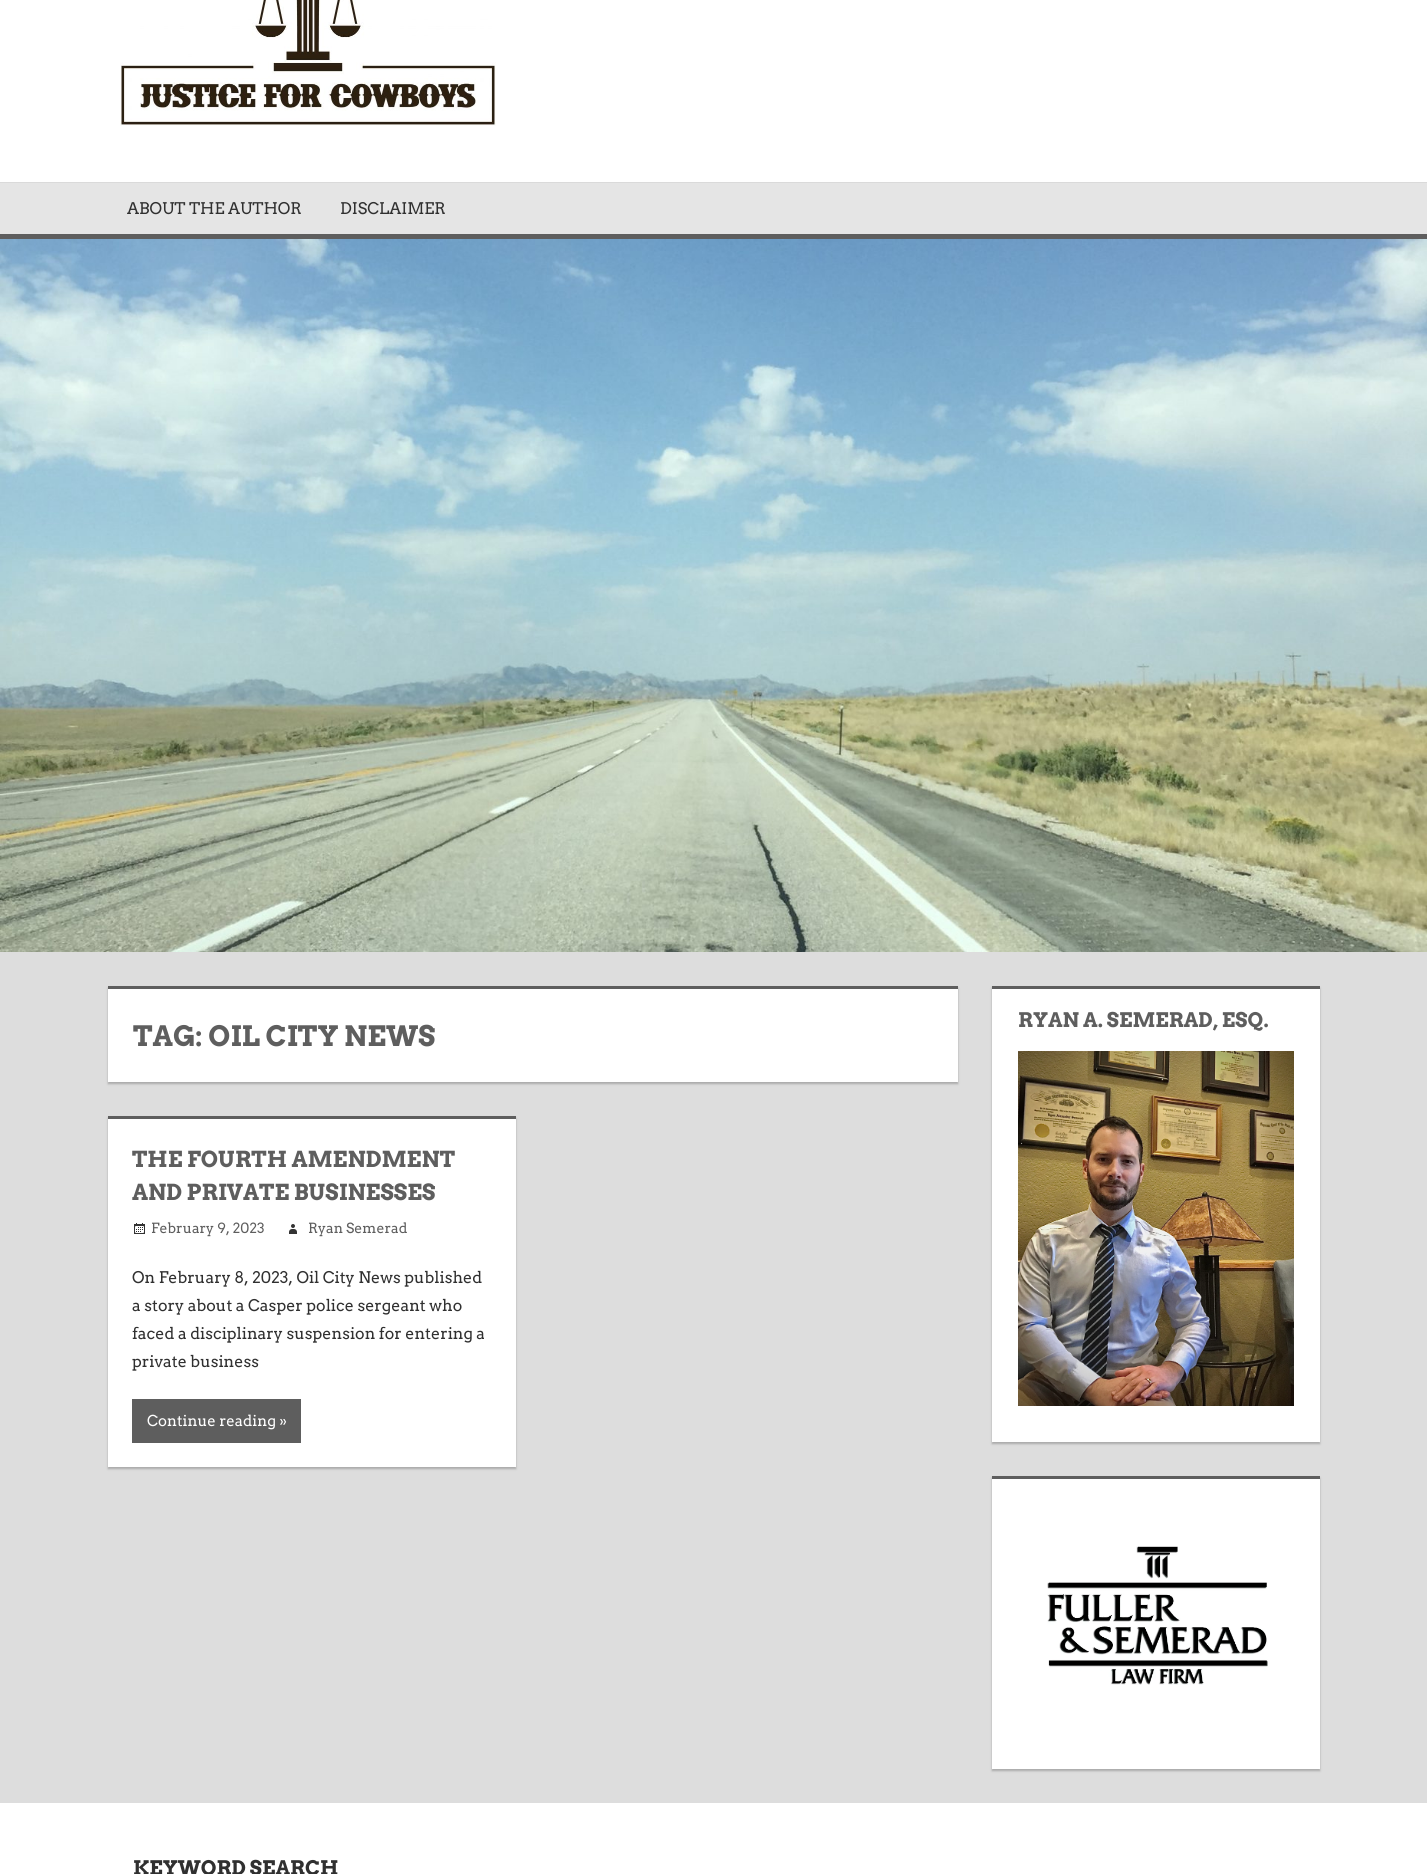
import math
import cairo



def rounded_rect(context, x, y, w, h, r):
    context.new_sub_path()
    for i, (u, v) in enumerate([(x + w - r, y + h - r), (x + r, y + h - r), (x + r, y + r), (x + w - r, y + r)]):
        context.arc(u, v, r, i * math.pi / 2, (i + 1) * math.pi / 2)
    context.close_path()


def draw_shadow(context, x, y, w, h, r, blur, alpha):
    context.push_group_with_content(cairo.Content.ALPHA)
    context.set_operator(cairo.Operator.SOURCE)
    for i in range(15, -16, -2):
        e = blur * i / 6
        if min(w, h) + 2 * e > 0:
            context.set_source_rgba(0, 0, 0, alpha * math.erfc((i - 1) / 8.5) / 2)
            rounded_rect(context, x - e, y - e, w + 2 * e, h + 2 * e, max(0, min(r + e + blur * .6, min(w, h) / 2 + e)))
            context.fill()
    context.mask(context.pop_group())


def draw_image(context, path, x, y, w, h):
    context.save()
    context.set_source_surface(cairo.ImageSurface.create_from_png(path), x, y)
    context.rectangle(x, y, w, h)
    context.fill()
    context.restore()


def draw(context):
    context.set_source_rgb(221 / 255, 221 / 255, 221 / 255)
    context.paint()
    context.set_source_rgb(1, 1, 1)
    context.rectangle(0, 0, 1427, 182)
    context.fill()
    draw_image(context, "images/1.png", 120, 0, 376, 126)
    context.set_source_rgb(229 / 255, 229 / 255, 229 / 255)
    context.rectangle(0, 183, 1427, 51)
    context.fill()
    context.set_source_rgb(218 / 255, 218 / 255, 218 / 255)
    context.rectangle(0, 182, 1427, 1)
    context.fill()
    context.set_source_rgb(94 / 255, 94 / 255, 94 / 255)
    context.rectangle(0, 234, 1427, 5)
    context.fill()
    draw_image(context, "images/2.png", 0, 239, 1427, 713)
    context.set_source_rgb(170 / 255, 170 / 255, 170 / 255)
    draw_shadow(context, 992, 988, 328, 456, 0, 1, 1)
    context.set_source_rgb(1, 1, 1)
    context.rectangle(992, 989, 328, 453)
    context.fill()
    context.set_source_rgb(94 / 255, 94 / 255, 94 / 255)
    context.rectangle(992, 986, 328, 3)
    context.fill()
    draw_image(context, "images/3.png", 1018, 1051, 276, 355)
    context.set_source_rgb(170 / 255, 170 / 255, 170 / 255)
    draw_shadow(context, 992, 1478, 328, 293, 0, 1, 1)
    context.set_source_rgb(1, 1, 1)
    context.rectangle(992, 1479, 328, 290)
    context.fill()
    context.set_source_rgb(94 / 255, 94 / 255, 94 / 255)
    context.rectangle(992, 1476, 328, 3)
    context.fill()
    draw_image(context, "images/4.png", 1047, 1546, 221, 139)
    context.set_source_rgb(170 / 255, 170 / 255, 170 / 255)
    draw_shadow(context, 108, 988, 850, 96, 0, 1, 1)
    context.set_source_rgb(1, 1, 1)
    context.rectangle(108, 989, 850, 93)
    context.fill()
    context.set_source_rgb(94 / 255, 94 / 255, 94 / 255)
    context.rectangle(108, 986, 850, 3)
    context.fill()
    context.set_source_rgb(170 / 255, 170 / 255, 170 / 255)
    draw_shadow(context, 108, 1118, 408, 351, 0, 1, 1)
    context.set_source_rgb(1, 1, 1)
    context.rectangle(108, 1119, 408, 348)
    context.fill()
    context.set_source_rgb(94 / 255, 94 / 255, 94 / 255)
    context.rectangle(108, 1116, 408, 3)
    context.fill()
    draw_image(context, "images/5.png", 134, 1223, 11, 11)
    draw_image(context, "images/6.png", 289, 1224, 8, 10)
    context.rectangle(132, 1399, 169, 44)
    context.fill()
    context.set_source_rgb(1, 1, 1)
    context.rectangle(0, 1803, 1427, 71)
    context.fill()
    context.select_font_face("Arvo")
    context.set_font_size(16)
    context.set_source_rgb(48 / 255, 48 / 255, 48 / 255)
    context.move_to(127, 214)
    context.show_text("ABOUT THE AUTHOR")
    context.move_to(340, 214)
    context.show_text("DISCLAIMER")
    context.select_font_face("Arvo", cairo.FontSlant.NORMAL, cairo.FontWeight.BOLD)
    context.set_font_size(20)
    context.set_source_rgb(94 / 255, 94 / 255, 94 / 255)
    context.move_to(1018, 1027)
    context.show_text("RYAN A. SEMERAD, ESQ.")
    context.set_font_size(28)
    context.move_to(133, 1046)
    context.show_text("TAG: OIL CITY NEWS")
    context.set_font_size(22)
    context.move_to(132, 1167)
    context.show_text("THE FOURTH AMENDMENT")
    context.move_to(132, 1200)
    context.show_text("AND PRIVATE BUSINESSES")
    context.select_font_face("Arvo")
    context.set_font_size(14)
    context.move_to(151, 1233)
    context.show_text("February 9, 2023")
    context.move_to(308, 1233)
    context.show_text("Ryan Semerad")
    context.set_font_size(16)
    context.set_source_rgb(48 / 255, 48 / 255, 48 / 255)
    context.move_to(132, 1283)
    context.show_text("On February 8, 2023, Oil City News published")
    context.move_to(132, 1311)
    context.show_text("a story about a Casper police sergeant who")
    context.move_to(132, 1339)
    context.show_text("faced a disciplinary suspension for entering a")
    context.move_to(132, 1367)
    context.show_text("private business")
    context.set_font_size(15)
    context.set_source_rgb(1, 1, 1)
    context.move_to(147, 1426)
    context.show_text("Continue reading »")
    context.select_font_face("Arvo", cairo.FontSlant.NORMAL, cairo.FontWeight.BOLD)
    context.set_font_size(20)
    context.set_source_rgb(48 / 255, 48 / 255, 48 / 255)
    context.move_to(133, 1875)
    context.show_text("KEYWORD SEARCH")


surface = cairo.ImageSurface(cairo.Format.RGB24, 1427, 1874)
context = cairo.Context(surface)
options = cairo.FontOptions()
options.set_hint_metrics(cairo.HintMetrics.OFF)
options.set_hint_style(cairo.HintStyle.NONE)
context.set_font_options(options)
context.set_miter_limit(4)
draw(context)
surface.write_to_png("out.png")
